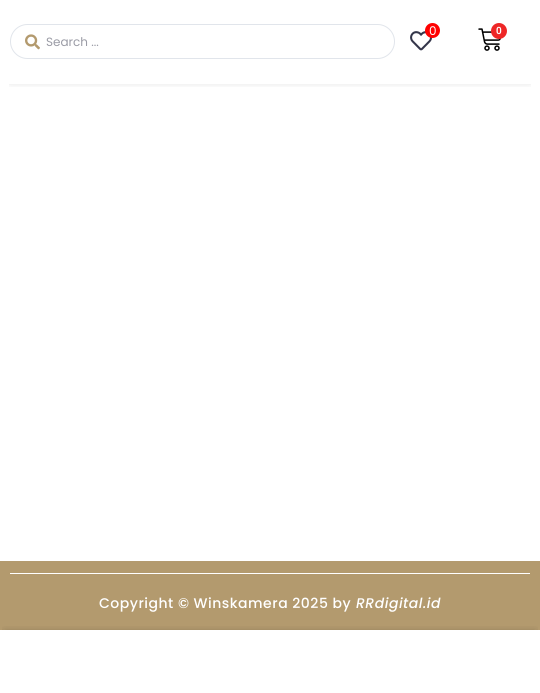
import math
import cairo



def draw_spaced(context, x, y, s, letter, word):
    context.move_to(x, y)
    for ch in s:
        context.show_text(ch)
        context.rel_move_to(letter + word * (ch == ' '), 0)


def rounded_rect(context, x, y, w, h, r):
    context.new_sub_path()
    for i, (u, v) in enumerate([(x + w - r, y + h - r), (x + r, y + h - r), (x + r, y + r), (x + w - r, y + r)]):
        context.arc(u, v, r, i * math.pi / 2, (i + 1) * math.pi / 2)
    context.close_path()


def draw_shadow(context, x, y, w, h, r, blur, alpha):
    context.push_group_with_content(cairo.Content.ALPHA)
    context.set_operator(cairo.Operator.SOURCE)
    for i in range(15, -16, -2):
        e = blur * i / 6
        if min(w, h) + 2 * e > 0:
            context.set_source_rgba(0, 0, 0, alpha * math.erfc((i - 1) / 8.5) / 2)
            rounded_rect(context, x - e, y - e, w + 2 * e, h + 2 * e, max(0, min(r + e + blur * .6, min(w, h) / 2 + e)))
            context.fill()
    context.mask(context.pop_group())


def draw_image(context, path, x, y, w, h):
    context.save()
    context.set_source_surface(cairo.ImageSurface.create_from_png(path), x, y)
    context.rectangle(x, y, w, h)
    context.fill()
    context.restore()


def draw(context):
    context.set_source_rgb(1, 1, 1)
    context.paint()
    context.save()
    context.rectangle(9, 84, 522, 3)
    context.clip()
    context.set_source_rgb(0, 0, 0)
    draw_shadow(context, 10, 14, 520, 64, 0, 5, 0.5)
    context.restore()
    draw_image(context, "images/1.png", 410, 31, 22, 20)
    context.set_source_rgb(1, 1 / 255, 1 / 255)
    context.arc(432.5, 30.5, 7.5, 0, 2 * math.pi)
    context.fill()
    draw_image(context, "images/2.png", 478, 28, 23, 23)
    context.set_source_rgb(238 / 255, 39 / 255, 39 / 255)
    context.arc(499, 31, 8, 0, 2 * math.pi)
    context.fill()
    rounded_rect(context, 10.5, 24.5, 384, 34, 17)
    context.set_source_rgb(225 / 255, 229 / 255, 235 / 255)
    context.set_line_width(1)
    context.stroke()
    draw_image(context, "images/3.png", 25, 34, 15, 16)
    context.set_source_rgb(179 / 255, 154 / 255, 110 / 255)
    context.rectangle(0, 561, 540, 69)
    context.fill()
    context.set_source_rgb(1, 1, 1)
    context.rectangle(10, 573, 520, 1)
    context.fill()
    context.save()
    context.rectangle(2, 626, 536, 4)
    context.clip()
    context.set_source_rgb(0, 0, 0)
    draw_shadow(context, 5, 635, 530, 53, 0, 5, 0.5)
    context.restore()
    context.select_font_face("Poppins")
    context.set_font_size(12)
    context.move_to(429, 35)
    context.show_text("0")
    context.select_font_face("Roboto SemiBold")
    context.set_font_size(10)
    context.move_to(496, 34)
    context.show_text("0")
    context.select_font_face("Poppins")
    context.set_font_size(12)
    context.set_source_rgb(154 / 255, 155 / 255, 165 / 255)
    context.move_to(46, 46)
    context.show_text("Search ...")
    context.select_font_face("Poppins Medium")
    context.set_font_size(14)
    context.set_source_rgb(1, 1, 1)
    draw_spaced(context, 99, 608, "Copyright © Winskamera 2025 by", 0.5, 0)
    context.select_font_face("Poppins Medium", cairo.FontSlant.ITALIC)
    draw_spaced(context, 356, 608, "RRdigital.id", 0.5, 0)


surface = cairo.ImageSurface(cairo.Format.RGB24, 540, 693)
context = cairo.Context(surface)
options = cairo.FontOptions()
options.set_hint_metrics(cairo.HintMetrics.OFF)
options.set_hint_style(cairo.HintStyle.NONE)
context.set_font_options(options)
context.set_miter_limit(4)
draw(context)
surface.write_to_png("out.png")
